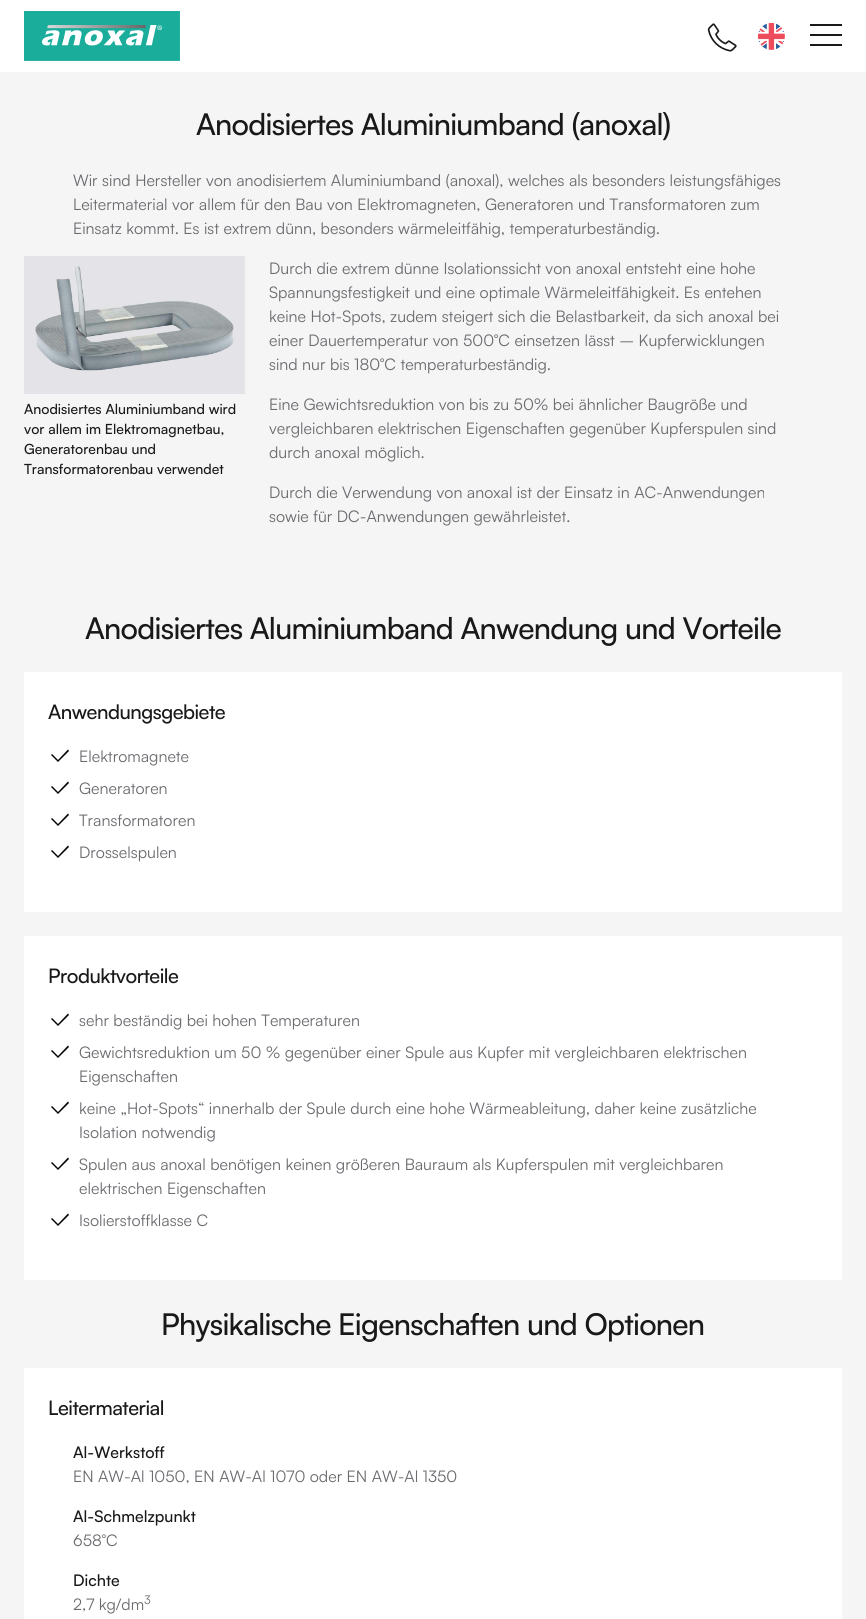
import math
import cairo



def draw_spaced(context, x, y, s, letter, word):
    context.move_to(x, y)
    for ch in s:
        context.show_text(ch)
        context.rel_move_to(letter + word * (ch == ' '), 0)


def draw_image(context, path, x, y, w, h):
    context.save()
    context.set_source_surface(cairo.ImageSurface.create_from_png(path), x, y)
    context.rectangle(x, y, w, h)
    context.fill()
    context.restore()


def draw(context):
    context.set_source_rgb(245 / 255, 245 / 255, 245 / 255)
    context.paint()
    context.set_source_rgb(1, 1, 1)
    context.rectangle(0, 0, 866, 72)
    context.fill()
    draw_image(context, "images/1.png", 24, 11, 156, 50)
    draw_image(context, "images/2.png", 707, 23, 30, 29)
    draw_image(context, "images/3.png", 757, 22, 28, 28)
    context.set_source_rgb(25 / 255, 25 / 255, 26 / 255)
    context.rectangle(810, 24, 32, 2)
    context.fill()
    context.rectangle(810, 34, 32, 2)
    context.fill()
    context.rectangle(810, 44, 32, 2)
    context.fill()
    draw_image(context, "images/4.png", 24, 256, 221, 138)
    context.set_source_rgb(1, 1, 1)
    context.rectangle(24, 672, 818, 240)
    context.fill()
    context.set_source_rgb(0, 0, 0)
    context.new_path()
    context.move_to(58, 762)
    context.line_to(51, 755)
    context.line_to(52, 754)
    context.line_to(58, 760)
    context.line_to(68, 749.5)
    context.line_to(69, 751)
    context.close_path()
    context.fill()
    context.new_path()
    context.move_to(58, 794)
    context.line_to(51, 787)
    context.line_to(52, 786)
    context.line_to(58, 792)
    context.line_to(68, 781.5)
    context.line_to(69, 783)
    context.close_path()
    context.fill()
    context.new_path()
    context.move_to(58, 826)
    context.line_to(51, 819)
    context.line_to(52, 818)
    context.line_to(58, 824)
    context.line_to(68, 813.5)
    context.line_to(69, 815)
    context.close_path()
    context.fill()
    context.new_path()
    context.move_to(58, 858)
    context.line_to(51, 851)
    context.line_to(52, 850)
    context.line_to(58, 856)
    context.line_to(68, 845.5)
    context.line_to(69, 847)
    context.close_path()
    context.fill()
    context.set_source_rgb(1, 1, 1)
    context.rectangle(24, 936, 818, 344)
    context.fill()
    context.set_source_rgb(0, 0, 0)
    context.new_path()
    context.move_to(58, 1026)
    context.line_to(51, 1019)
    context.line_to(52, 1018)
    context.line_to(58, 1024)
    context.line_to(68, 1013.5)
    context.line_to(69, 1015)
    context.close_path()
    context.fill()
    context.new_path()
    context.move_to(58, 1058)
    context.line_to(51, 1051)
    context.line_to(52, 1050)
    context.line_to(58, 1056)
    context.line_to(68, 1045.5)
    context.line_to(69, 1047)
    context.close_path()
    context.fill()
    context.new_path()
    context.move_to(58, 1114)
    context.line_to(51, 1107)
    context.line_to(52, 1106)
    context.line_to(58, 1112)
    context.line_to(68, 1101.5)
    context.line_to(69, 1103)
    context.close_path()
    context.fill()
    context.new_path()
    context.move_to(58, 1170)
    context.line_to(51, 1163)
    context.line_to(52, 1162)
    context.line_to(58, 1168)
    context.line_to(68, 1157.5)
    context.line_to(69, 1159)
    context.close_path()
    context.fill()
    context.new_path()
    context.move_to(58, 1226)
    context.line_to(51, 1219)
    context.line_to(52, 1218)
    context.line_to(58, 1224)
    context.line_to(68, 1213.5)
    context.line_to(69, 1215)
    context.close_path()
    context.fill()
    context.set_source_rgb(1, 1, 1)
    context.rectangle(24, 1368, 818, 251)
    context.fill()
    context.select_font_face("Satoshi Medium")
    context.set_font_size(30)
    context.set_source_rgb(25 / 255, 25 / 255, 26 / 255)
    draw_spaced(context, 196, 135, "Anodisiertes Aluminiumband (anoxal)", -0.75, 0)
    context.select_font_face("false")
    context.set_font_size(16)
    context.set_source_rgb(107 / 255, 107 / 255, 112 / 255)
    context.move_to(73, 186)
    context.show_text("Wir sind Hersteller von anodisiertem Aluminiumband (anoxal), welches als besonders leistungsfähiges")
    context.move_to(73, 210)
    context.show_text("Leitermaterial vor allem für den Bau von Elektromagneten, Generatoren und Transformatoren zum")
    context.move_to(73, 234)
    context.show_text("Einsatz kommt. Es ist extrem dünn, besonders wärmeleitfähig, temperaturbeständig.")
    context.move_to(269, 274)
    context.show_text("Durch die extrem dünne Isolationssicht von anoxal entsteht eine hohe")
    context.move_to(269, 298)
    context.show_text("Spannungsfestigkeit und eine optimale Wärmeleitfähigkeit. Es entehen")
    context.move_to(269, 322)
    context.show_text("keine Hot-Spots, zudem steigert sich die Belastbarkeit, da sich anoxal bei")
    context.move_to(269, 346)
    context.show_text("einer Dauertemperatur von 500°C einsetzen lässt – Kupferwicklungen")
    context.move_to(269, 370)
    context.show_text("sind nur bis 180°C temperaturbeständig.")
    context.select_font_face("Satoshi Medium")
    context.set_font_size(14)
    context.set_source_rgb(25 / 255, 25 / 255, 26 / 255)
    context.move_to(24, 414)
    context.show_text("Anodisiertes Aluminiumband wird")
    context.move_to(24, 434)
    context.show_text("vor allem im Elektromagnetbau,")
    context.move_to(24, 454)
    context.show_text("Generatorenbau und")
    context.move_to(24, 474)
    context.show_text("Transformatorenbau verwendet")
    context.select_font_face("false")
    context.set_font_size(16)
    context.set_source_rgb(107 / 255, 107 / 255, 112 / 255)
    context.move_to(269, 410)
    context.show_text("Eine Gewichtsreduktion von bis zu 50% bei ähnlicher Baugröße und")
    context.move_to(269, 434)
    context.show_text("vergleichbaren elektrischen Eigenschaften gegenüber Kupferspulen sind")
    context.move_to(269, 458)
    context.show_text("durch anoxal möglich.")
    context.move_to(269, 498)
    context.show_text("Durch die Verwendung von anoxal ist der Einsatz in AC-Anwendungen")
    context.move_to(269, 522)
    context.show_text("sowie für DC-Anwendungen gewährleistet.")
    context.select_font_face("Satoshi Medium")
    context.set_font_size(30)
    context.set_source_rgb(25 / 255, 25 / 255, 26 / 255)
    draw_spaced(context, 85, 639, "Anodisiertes Aluminiumband Anwendung und Vorteile", -0.75, 0)
    context.set_font_size(20)
    draw_spaced(context, 48, 719, "Anwendungsgebiete", -0.5, 0)
    context.select_font_face("false")
    context.set_font_size(16)
    context.set_source_rgb(107 / 255, 107 / 255, 112 / 255)
    context.move_to(79, 762)
    context.show_text("Elektromagnete")
    context.move_to(79, 794)
    context.show_text("Generatoren")
    context.move_to(79, 826)
    context.show_text("Transformatoren")
    context.move_to(79, 858)
    context.show_text("Drosselspulen")
    context.select_font_face("Satoshi Medium")
    context.set_font_size(20)
    context.set_source_rgb(25 / 255, 25 / 255, 26 / 255)
    draw_spaced(context, 48, 983, "Produktvorteile", -0.5, 0)
    context.select_font_face("false")
    context.set_font_size(16)
    context.set_source_rgb(107 / 255, 107 / 255, 112 / 255)
    context.move_to(79, 1026)
    context.show_text("sehr beständig bei hohen Temperaturen")
    context.move_to(79, 1058)
    context.show_text("Gewichtsreduktion um 50 % gegenüber einer Spule aus Kupfer mit vergleichbaren elektrischen")
    context.move_to(79, 1082)
    context.show_text("Eigenschaften")
    context.move_to(79, 1114)
    context.show_text("keine „Hot-Spots“ innerhalb der Spule durch eine hohe Wärmeableitung, daher keine zusätzliche")
    context.move_to(79, 1138)
    context.show_text("Isolation notwendig")
    context.move_to(79, 1170)
    context.show_text("Spulen aus anoxal benötigen keinen größeren Bauraum als Kupferspulen mit vergleichbaren")
    context.move_to(79, 1194)
    context.show_text("elektrischen Eigenschaften")
    context.move_to(79, 1226)
    context.show_text("Isolierstoffklasse C")
    context.select_font_face("Satoshi Medium")
    context.set_font_size(30)
    context.set_source_rgb(25 / 255, 25 / 255, 26 / 255)
    draw_spaced(context, 161, 1335, "Physikalische Eigenschaften und Optionen", -0.75, 0)
    context.set_font_size(20)
    draw_spaced(context, 48, 1415, "Leitermaterial", -0.5, 0)
    context.set_font_size(16)
    context.move_to(73, 1458)
    context.show_text("Al-Werkstoff")
    context.select_font_face("false")
    context.set_source_rgb(107 / 255, 107 / 255, 112 / 255)
    context.move_to(73, 1482)
    context.show_text("EN AW-Al 1050, EN AW-Al 1070 oder EN AW-Al 1350")
    context.select_font_face("Satoshi Medium")
    context.set_source_rgb(25 / 255, 25 / 255, 26 / 255)
    context.move_to(73, 1522)
    context.show_text("Al-Schmelzpunkt")
    context.select_font_face("false")
    context.set_source_rgb(107 / 255, 107 / 255, 112 / 255)
    context.move_to(73, 1546)
    context.show_text("658°C")
    context.select_font_face("Satoshi Medium")
    context.set_source_rgb(25 / 255, 25 / 255, 26 / 255)
    context.move_to(73, 1586)
    context.show_text("Dichte")
    context.select_font_face("false")
    context.set_source_rgb(107 / 255, 107 / 255, 112 / 255)
    context.move_to(73, 1610)
    context.show_text("2,7 kg/dm")
    context.set_font_size(12)
    context.move_to(144, 1604)
    context.show_text("3")


surface = cairo.ImageSurface(cairo.Format.RGB24, 866, 1619)
context = cairo.Context(surface)
options = cairo.FontOptions()
options.set_hint_metrics(cairo.HintMetrics.OFF)
options.set_hint_style(cairo.HintStyle.NONE)
context.set_font_options(options)
context.set_miter_limit(4)
draw(context)
surface.write_to_png("out.png")
